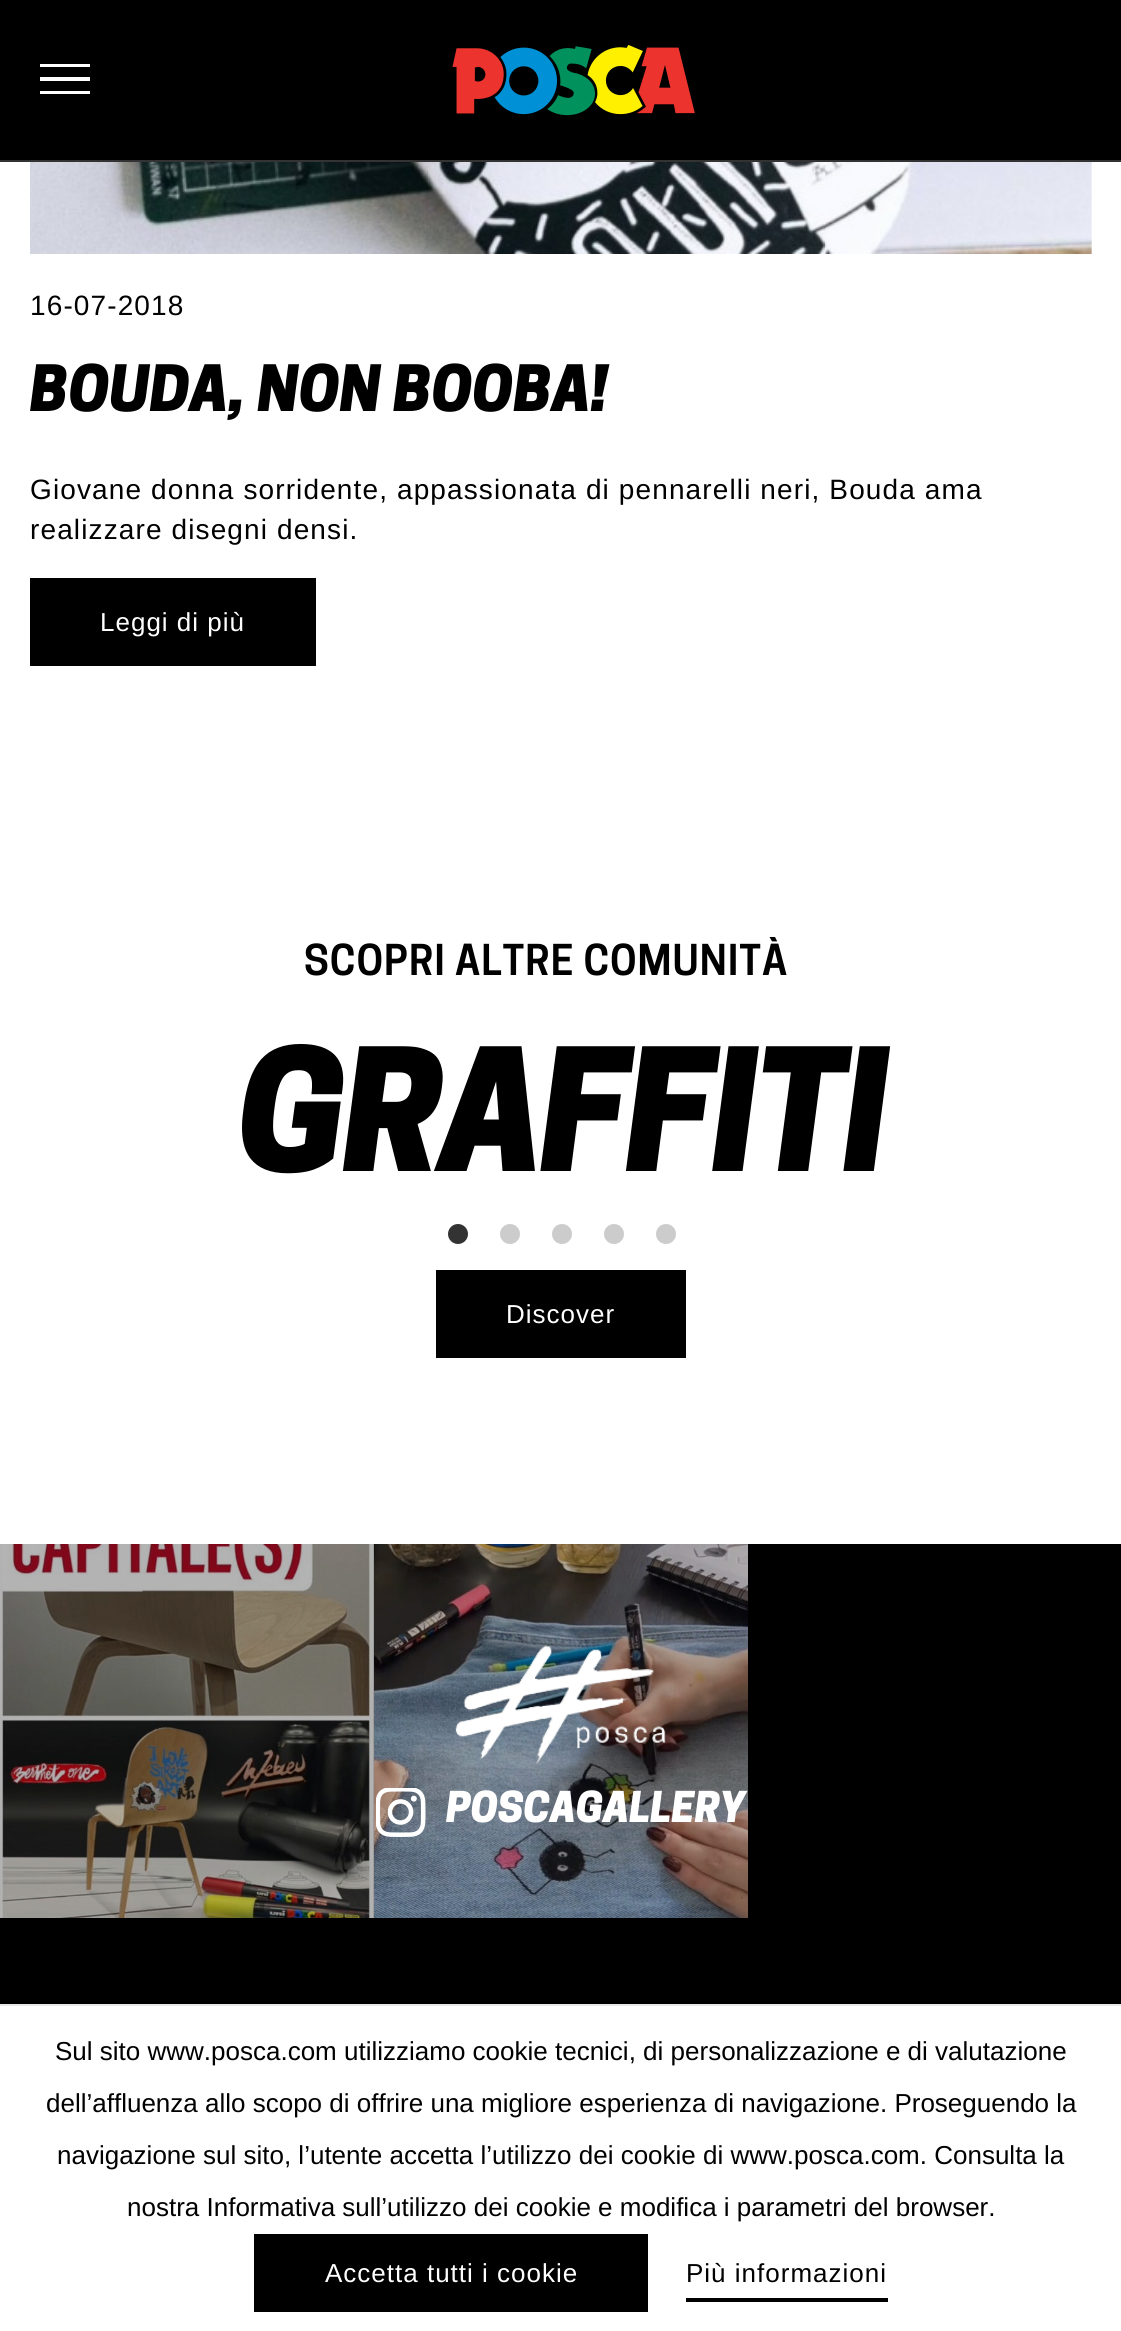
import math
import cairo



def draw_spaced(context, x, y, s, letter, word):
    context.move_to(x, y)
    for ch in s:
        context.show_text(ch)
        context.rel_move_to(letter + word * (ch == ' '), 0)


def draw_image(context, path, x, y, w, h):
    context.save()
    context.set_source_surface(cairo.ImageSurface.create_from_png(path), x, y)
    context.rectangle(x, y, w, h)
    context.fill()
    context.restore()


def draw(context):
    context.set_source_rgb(1, 1, 1)
    context.paint()
    context.set_source_rgb(0, 0, 0)
    context.rectangle(0, 0, 1121, 160)
    context.fill()
    context.set_source_rgb(1, 1, 1)
    context.new_path()
    context.move_to(40, 94)
    context.line_to(40, 91)
    context.line_to(90, 91)
    context.line_to(90, 94)
    context.close_path()
    context.move_to(40, 77)
    context.line_to(90, 77)
    context.line_to(90, 81)
    context.line_to(40, 81)
    context.close_path()
    context.move_to(40, 64)
    context.line_to(90, 64)
    context.line_to(90, 67)
    context.line_to(40, 67)
    context.close_path()
    context.fill()
    draw_image(context, "images/1.png", 452, 44, 243, 72)
    context.set_source_rgb(51 / 255, 51 / 255, 51 / 255)
    context.rectangle(0, 160, 1121, 2)
    context.fill()
    draw_image(context, "images/2.png", 30, 162, 1062, 92)
    context.rectangle(32, 580, 282, 84)
    context.set_source_rgb(0, 0, 0)
    context.set_line_width(4)
    context.stroke()
    context.rectangle(34, 582, 278, 80)
    context.fill()
    context.set_source_rgb(51 / 255, 51 / 255, 51 / 255)
    context.arc(458, 1234, 10, 0, 2 * math.pi)
    context.fill()
    context.set_source_rgb(204 / 255, 204 / 255, 204 / 255)
    context.arc(510, 1234, 10, 0, 2 * math.pi)
    context.fill()
    context.arc(562, 1234, 10, 0, 2 * math.pi)
    context.fill()
    context.arc(614, 1234, 10, 0, 2 * math.pi)
    context.fill()
    context.arc(666, 1234, 10, 0, 2 * math.pi)
    context.fill()
    context.rectangle(438, 1272, 246, 84)
    context.set_source_rgb(0, 0, 0)
    context.stroke()
    context.rectangle(440, 1274, 242, 80)
    context.fill()
    context.rectangle(0, 1918, 1121, 86)
    context.fill()
    context.rectangle(748, 1544, 373, 374)
    context.fill()
    draw_image(context, "images/3.png", 0, 1544, 374, 374)
    draw_image(context, "images/4.png", 374, 1544, 374, 374)
    draw_image(context, "images/5.png", 455, 1645, 211, 119)
    draw_image(context, "images/6.png", 376, 1788, 50, 49)
    context.set_source_rgb(232 / 255, 232 / 255, 232 / 255)
    context.rectangle(0, 2004, 1121, 2)
    context.fill()
    context.rectangle(256, 2236, 390, 74)
    context.set_source_rgb(0, 0, 0)
    context.stroke()
    context.rectangle(258, 2238, 386, 70)
    context.fill()
    context.rectangle(686, 2298, 202, 4)
    context.fill()
    context.select_font_face("Liberation Sans")
    context.set_font_size(28)
    draw_spaced(context, 30, 315, "16-07-2018", 1.12, 0)
    context.select_font_face("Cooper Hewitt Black", cairo.FontSlant.ITALIC)
    context.set_font_size(60)
    context.move_to(30, 411)
    context.show_text("BOUDA, NON BOOBA!")
    context.select_font_face("Liberation Sans")
    context.set_font_size(28)
    draw_spaced(context, 30, 499, "Giovane donna sorridente, appassionata di pennarelli neri, Bouda ama", 1.12, 0)
    draw_spaced(context, 30, 539, "realizzare disegni densi.", 1.12, 0)
    context.set_font_size(26)
    context.set_source_rgb(1, 1, 1)
    draw_spaced(context, 100, 631, "Leggi di più", 1, 0)
    context.select_font_face("Cooper Hewitt SemiBold")
    context.set_font_size(40)
    context.set_source_rgb(0, 0, 0)
    draw_spaced(context, 304, 975, "SCOPRI ALTRE COMUNITÀ", 1, 0)
    context.select_font_face("Cooper Hewitt Black", cairo.FontSlant.ITALIC)
    context.set_font_size(160)
    draw_spaced(context, 238, 1171, "GRAFFITI", -4, 0)
    context.select_font_face("Liberation Sans")
    context.set_font_size(26)
    context.set_source_rgb(1, 1, 1)
    draw_spaced(context, 506, 1323, "Discover", 1, 0)
    context.select_font_face("Cooper Hewitt Black", cairo.FontSlant.ITALIC)
    context.set_font_size(40)
    context.move_to(446, 1822)
    context.show_text("POSCAGALLERY")
    context.select_font_face("Liberation Sans")
    context.set_font_size(26)
    context.set_source_rgb(0, 0, 0)
    context.move_to(55, 2060)
    context.show_text("Sul sito www.posca.com utilizziamo cookie tecnici, di personalizzazione e di valutazione")
    context.move_to(46, 2112)
    context.show_text("dell’affluenza allo scopo di offrire una migliore esperienza di navigazione. Proseguendo la")
    context.move_to(57, 2164)
    context.show_text("navigazione sul sito, l’utente accetta l’utilizzo dei cookie di www.posca.com. Consulta la")
    context.move_to(127, 2216)
    context.show_text("nostra Informativa sull’utilizzo dei cookie e modifica i parametri del browser.")
    context.set_source_rgb(1, 1, 1)
    draw_spaced(context, 325, 2282, "Accetta tutti i cookie", 1, 0)
    context.set_source_rgb(0, 0, 0)
    draw_spaced(context, 686, 2282, "Più informazioni", 1, 0)


surface = cairo.ImageSurface(cairo.Format.RGB24, 1121, 2331)
context = cairo.Context(surface)
options = cairo.FontOptions()
options.set_hint_metrics(cairo.HintMetrics.OFF)
options.set_hint_style(cairo.HintStyle.NONE)
context.set_font_options(options)
context.set_miter_limit(4)
draw(context)
surface.write_to_png("out.png")
